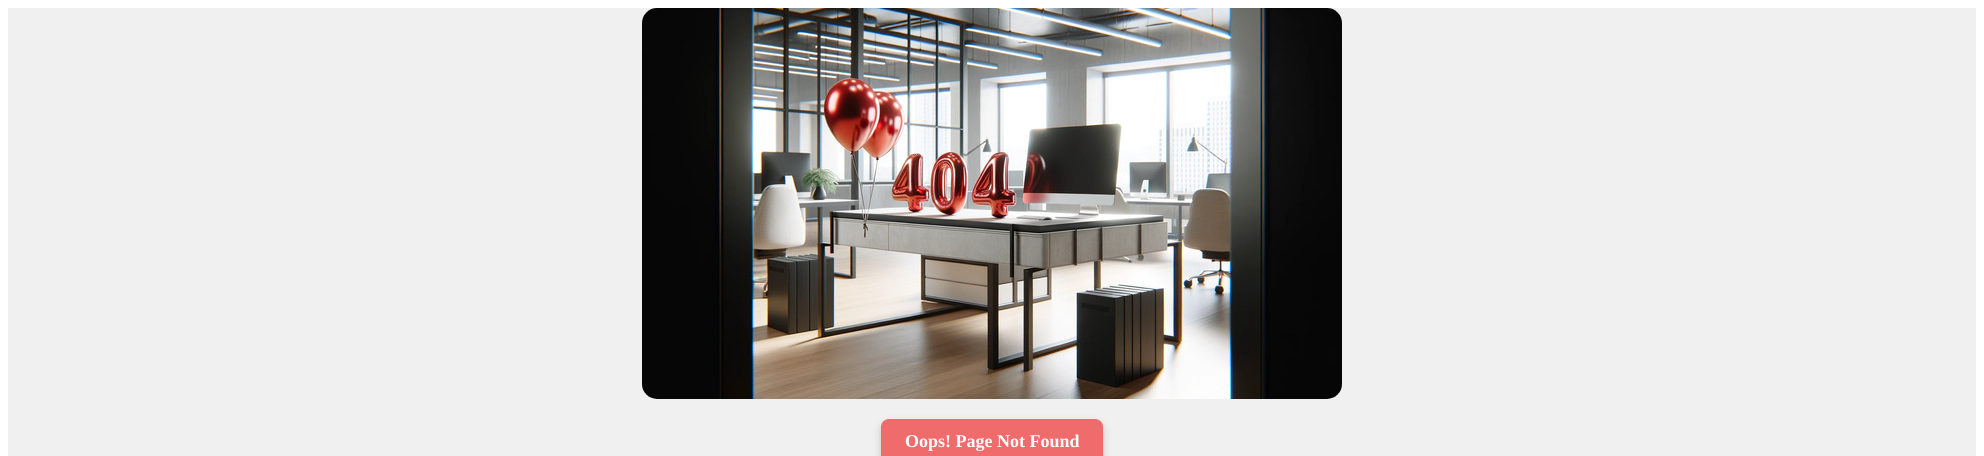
import math
import cairo



def rounded_rect(context, x, y, w, h, r):
    context.new_sub_path()
    for i, (u, v) in enumerate([(x + w - r, y + h - r), (x + r, y + h - r), (x + r, y + r), (x + w - r, y + r)]):
        context.arc(u, v, r, i * math.pi / 2, (i + 1) * math.pi / 2)
    context.close_path()


def draw_shadow(context, x, y, w, h, r, blur, alpha):
    context.push_group_with_content(cairo.Content.ALPHA)
    context.set_operator(cairo.Operator.SOURCE)
    for i in range(15, -16, -2):
        e = blur * i / 6
        if min(w, h) + 2 * e > 0:
            context.set_source_rgba(0, 0, 0, alpha * math.erfc((i - 1) / 8.5) / 2)
            rounded_rect(context, x - e, y - e, w + 2 * e, h + 2 * e, max(0, min(r + e + blur * .6, min(w, h) / 2 + e)))
            context.fill()
    context.mask(context.pop_group())


def draw_image(context, path, x, y, w, h):
    context.save()
    context.set_source_surface(cairo.ImageSurface.create_from_png(path), x, y)
    context.rectangle(x, y, w, h)
    context.fill()
    context.restore()


def draw(context):
    context.set_source_rgb(1, 1, 1)
    context.paint()
    context.set_source_rgb(240 / 255, 240 / 255, 240 / 255)
    context.rectangle(8, 8, 1968, 448)
    context.fill()
    draw_image(context, "images/1.png", 642, 8, 700, 391)
    context.set_source_rgb(0, 0, 0)
    draw_shadow(context, 881, 423, 222, 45, 8, 4, 0.2)
    context.set_source_rgb(240 / 255, 108 / 255, 108 / 255)
    rounded_rect(context, 881, 419, 222, 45, 8)
    context.fill()
    context.select_font_face("Liberation Serif", cairo.FontSlant.NORMAL, cairo.FontWeight.BOLD)
    context.set_font_size(18)
    context.set_source_rgb(1, 1, 1)
    context.move_to(905, 447)
    context.show_text("Oops! Page Not Found")


surface = cairo.ImageSurface(cairo.Format.RGB24, 1984, 456)
context = cairo.Context(surface)
options = cairo.FontOptions()
options.set_hint_metrics(cairo.HintMetrics.OFF)
options.set_hint_style(cairo.HintStyle.NONE)
context.set_font_options(options)
context.set_miter_limit(4)
draw(context)
surface.write_to_png("out.png")
